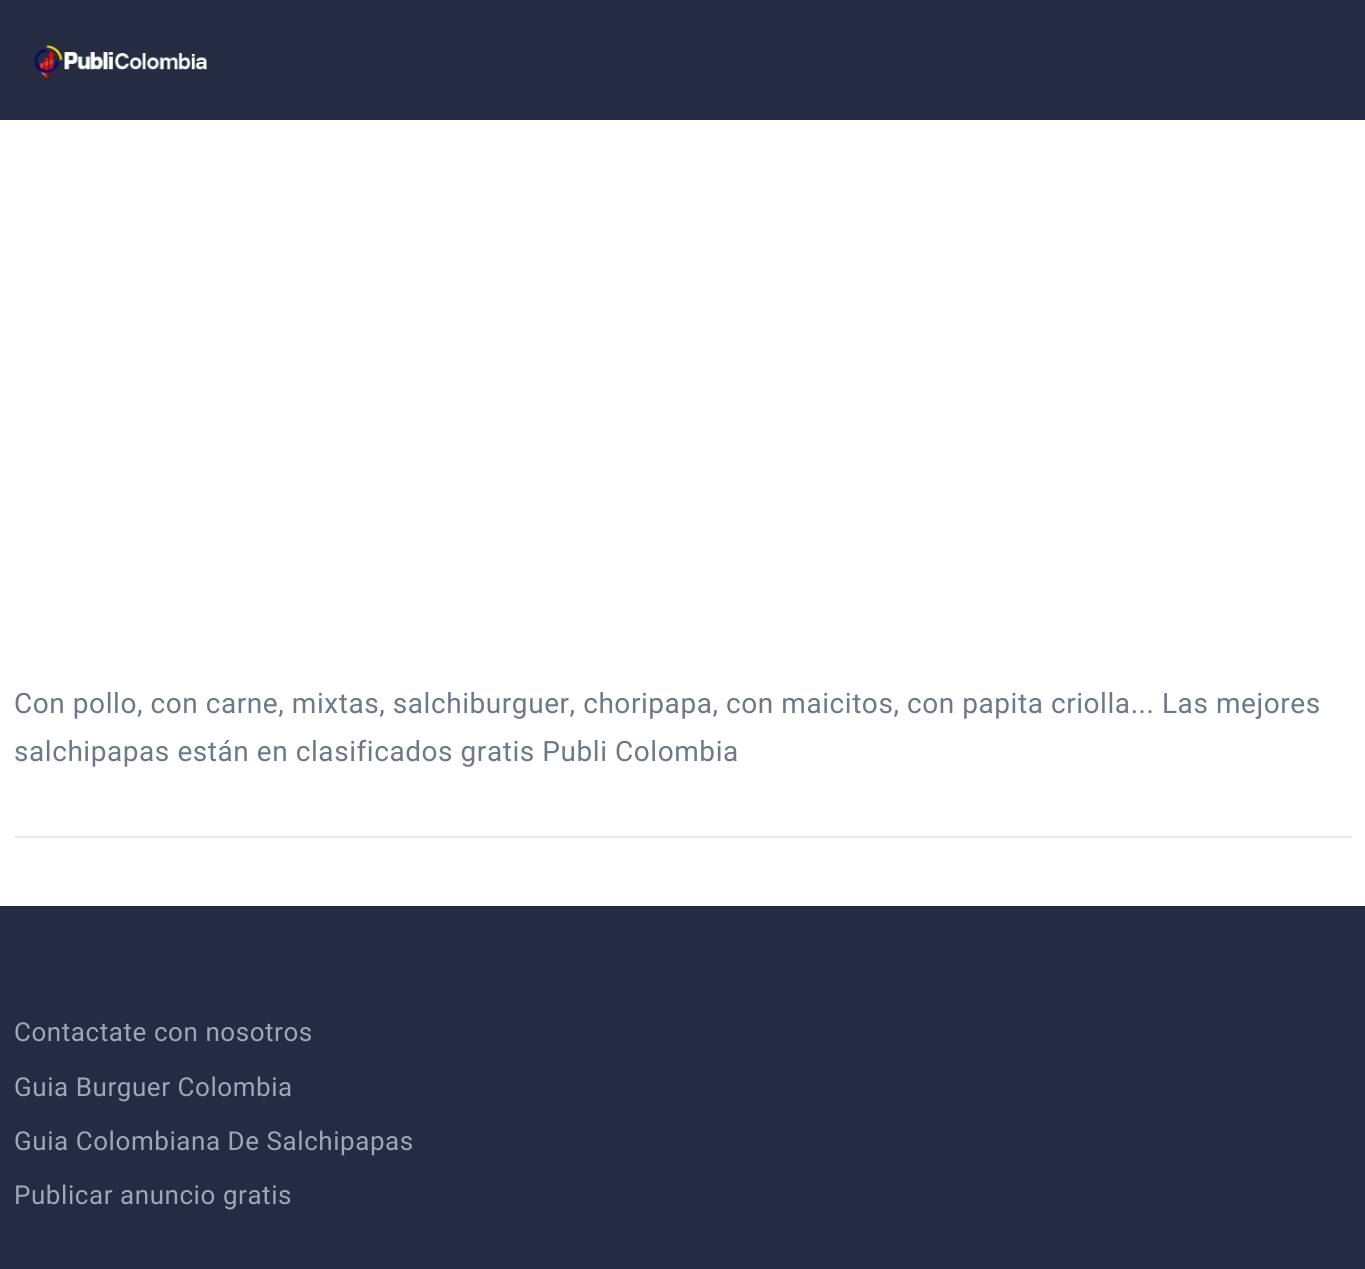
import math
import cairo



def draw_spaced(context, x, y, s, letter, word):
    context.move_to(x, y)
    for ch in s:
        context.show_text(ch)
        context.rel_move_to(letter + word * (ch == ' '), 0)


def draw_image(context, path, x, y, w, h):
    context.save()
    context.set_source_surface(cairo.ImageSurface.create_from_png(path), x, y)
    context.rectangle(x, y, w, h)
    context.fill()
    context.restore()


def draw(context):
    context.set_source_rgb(1, 1, 1)
    context.paint()
    context.set_source_rgb(37 / 255, 44 / 255, 65 / 255)
    context.rectangle(0, 0, 1365, 120)
    context.fill()
    draw_image(context, "images/1.png", 34, 45, 174, 35)
    context.set_source_rgb(235 / 255, 235 / 255, 235 / 255)
    context.rectangle(14, 836, 1338, 2)
    context.fill()
    context.set_source_rgb(37 / 255, 44 / 255, 65 / 255)
    context.rectangle(0, 906, 1365, 363)
    context.fill()
    context.select_font_face("Roboto")
    context.set_font_size(28)
    context.set_source_rgb(112 / 255, 119 / 255, 139 / 255)
    draw_spaced(context, 14, 713, "Con pollo, con carne, mixtas, salchiburguer, choripapa, con maicitos, con papita criolla... Las mejores", 0.56, 0)
    draw_spaced(context, 14, 761, "salchipapas están en clasificados gratis Publi Colombia", 0.56, 0)
    context.set_font_size(26)
    context.set_source_rgb(158 / 255, 166 / 255, 186 / 255)
    draw_spaced(context, 14, 1041, "Contactate con nosotros", 0.56, 0)
    draw_spaced(context, 14, 1096, "Guia Burguer Colombia", 0.56, 0)
    draw_spaced(context, 14, 1150, "Guia Colombiana De Salchipapas", 0.56, 0)
    draw_spaced(context, 14, 1204, "Publicar anuncio gratis", 0.56, 0)


surface = cairo.ImageSurface(cairo.Format.RGB24, 1365, 1269)
context = cairo.Context(surface)
options = cairo.FontOptions()
options.set_hint_metrics(cairo.HintMetrics.OFF)
options.set_hint_style(cairo.HintStyle.NONE)
context.set_font_options(options)
context.set_miter_limit(4)
draw(context)
surface.write_to_png("out.png")
